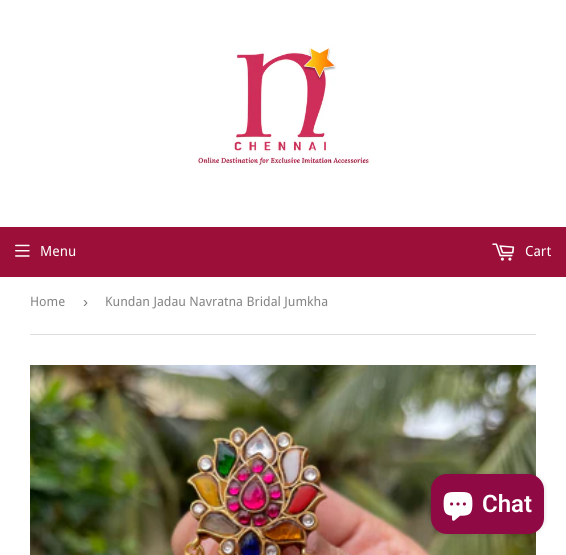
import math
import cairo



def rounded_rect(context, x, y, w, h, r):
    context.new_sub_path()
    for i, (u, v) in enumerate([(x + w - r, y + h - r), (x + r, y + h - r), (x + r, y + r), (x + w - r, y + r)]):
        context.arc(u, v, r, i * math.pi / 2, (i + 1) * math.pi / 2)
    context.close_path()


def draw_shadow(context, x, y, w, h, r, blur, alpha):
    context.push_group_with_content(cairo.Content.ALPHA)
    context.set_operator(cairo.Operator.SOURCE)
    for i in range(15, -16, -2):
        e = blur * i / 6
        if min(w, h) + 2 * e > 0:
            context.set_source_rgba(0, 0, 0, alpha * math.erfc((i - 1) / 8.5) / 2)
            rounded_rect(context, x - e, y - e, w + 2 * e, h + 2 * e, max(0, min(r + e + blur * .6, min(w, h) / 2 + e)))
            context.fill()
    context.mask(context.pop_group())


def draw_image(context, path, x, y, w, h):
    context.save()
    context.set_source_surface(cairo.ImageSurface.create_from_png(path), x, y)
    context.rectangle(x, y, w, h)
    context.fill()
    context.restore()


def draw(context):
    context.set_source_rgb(1, 1, 1)
    context.paint()
    draw_image(context, "images/1.png", 196, 45, 176, 121)
    context.set_source_rgb(155 / 255, 15 / 255, 57 / 255)
    context.rectangle(0, 227, 566, 50)
    context.fill()
    draw_image(context, "images/2.png", 15, 244, 15, 13)
    draw_image(context, "images/3.png", 492, 243, 23, 18)
    context.set_source_rgb(222 / 255, 222 / 255, 222 / 255)
    context.rectangle(30, 334, 506, 1)
    context.fill()
    draw_image(context, "images/4.png", 30, 365, 506, 190)
    context.set_source_rgb(0, 0, 0)
    draw_shadow(context, 431, 474, 113, 60, 16, 2.5, 0.15)
    context.set_source_rgb(143 / 255, 9 / 255, 69 / 255)
    rounded_rect(context, 431, 474, 113, 60, 16)
    context.fill()
    draw_image(context, "images/5.png", 443, 492, 30, 29)
    context.select_font_face("Droid Sans")
    context.set_font_size(14)
    context.set_source_rgb(1, 1, 1)
    context.move_to(40, 256)
    context.show_text("Menu")
    context.move_to(525, 256)
    context.show_text("Cart")
    context.set_font_size(13)
    context.set_source_rgb(133 / 255, 133 / 255, 133 / 255)
    context.move_to(30, 306)
    context.show_text("Home")
    context.select_font_face("Liberation Sans")
    context.set_font_size(15)
    context.set_source_rgb(118 / 255, 118 / 255, 118 / 255)
    context.move_to(83, 307)
    context.show_text("›")
    context.select_font_face("Droid Sans")
    context.set_font_size(13)
    context.set_source_rgb(133 / 255, 133 / 255, 133 / 255)
    context.move_to(105, 306)
    context.show_text("Kundan Jadau Navratna Bridal Jumkha")
    context.select_font_face("Roboto SemiBold")
    context.set_font_size(24)
    context.set_source_rgb(1, 1, 1)
    context.move_to(482, 512)
    context.show_text("Chat")


surface = cairo.ImageSurface(cairo.Format.RGB24, 566, 555)
context = cairo.Context(surface)
options = cairo.FontOptions()
options.set_hint_metrics(cairo.HintMetrics.OFF)
options.set_hint_style(cairo.HintStyle.NONE)
context.set_font_options(options)
context.set_miter_limit(4)
draw(context)
surface.write_to_png("out.png")
